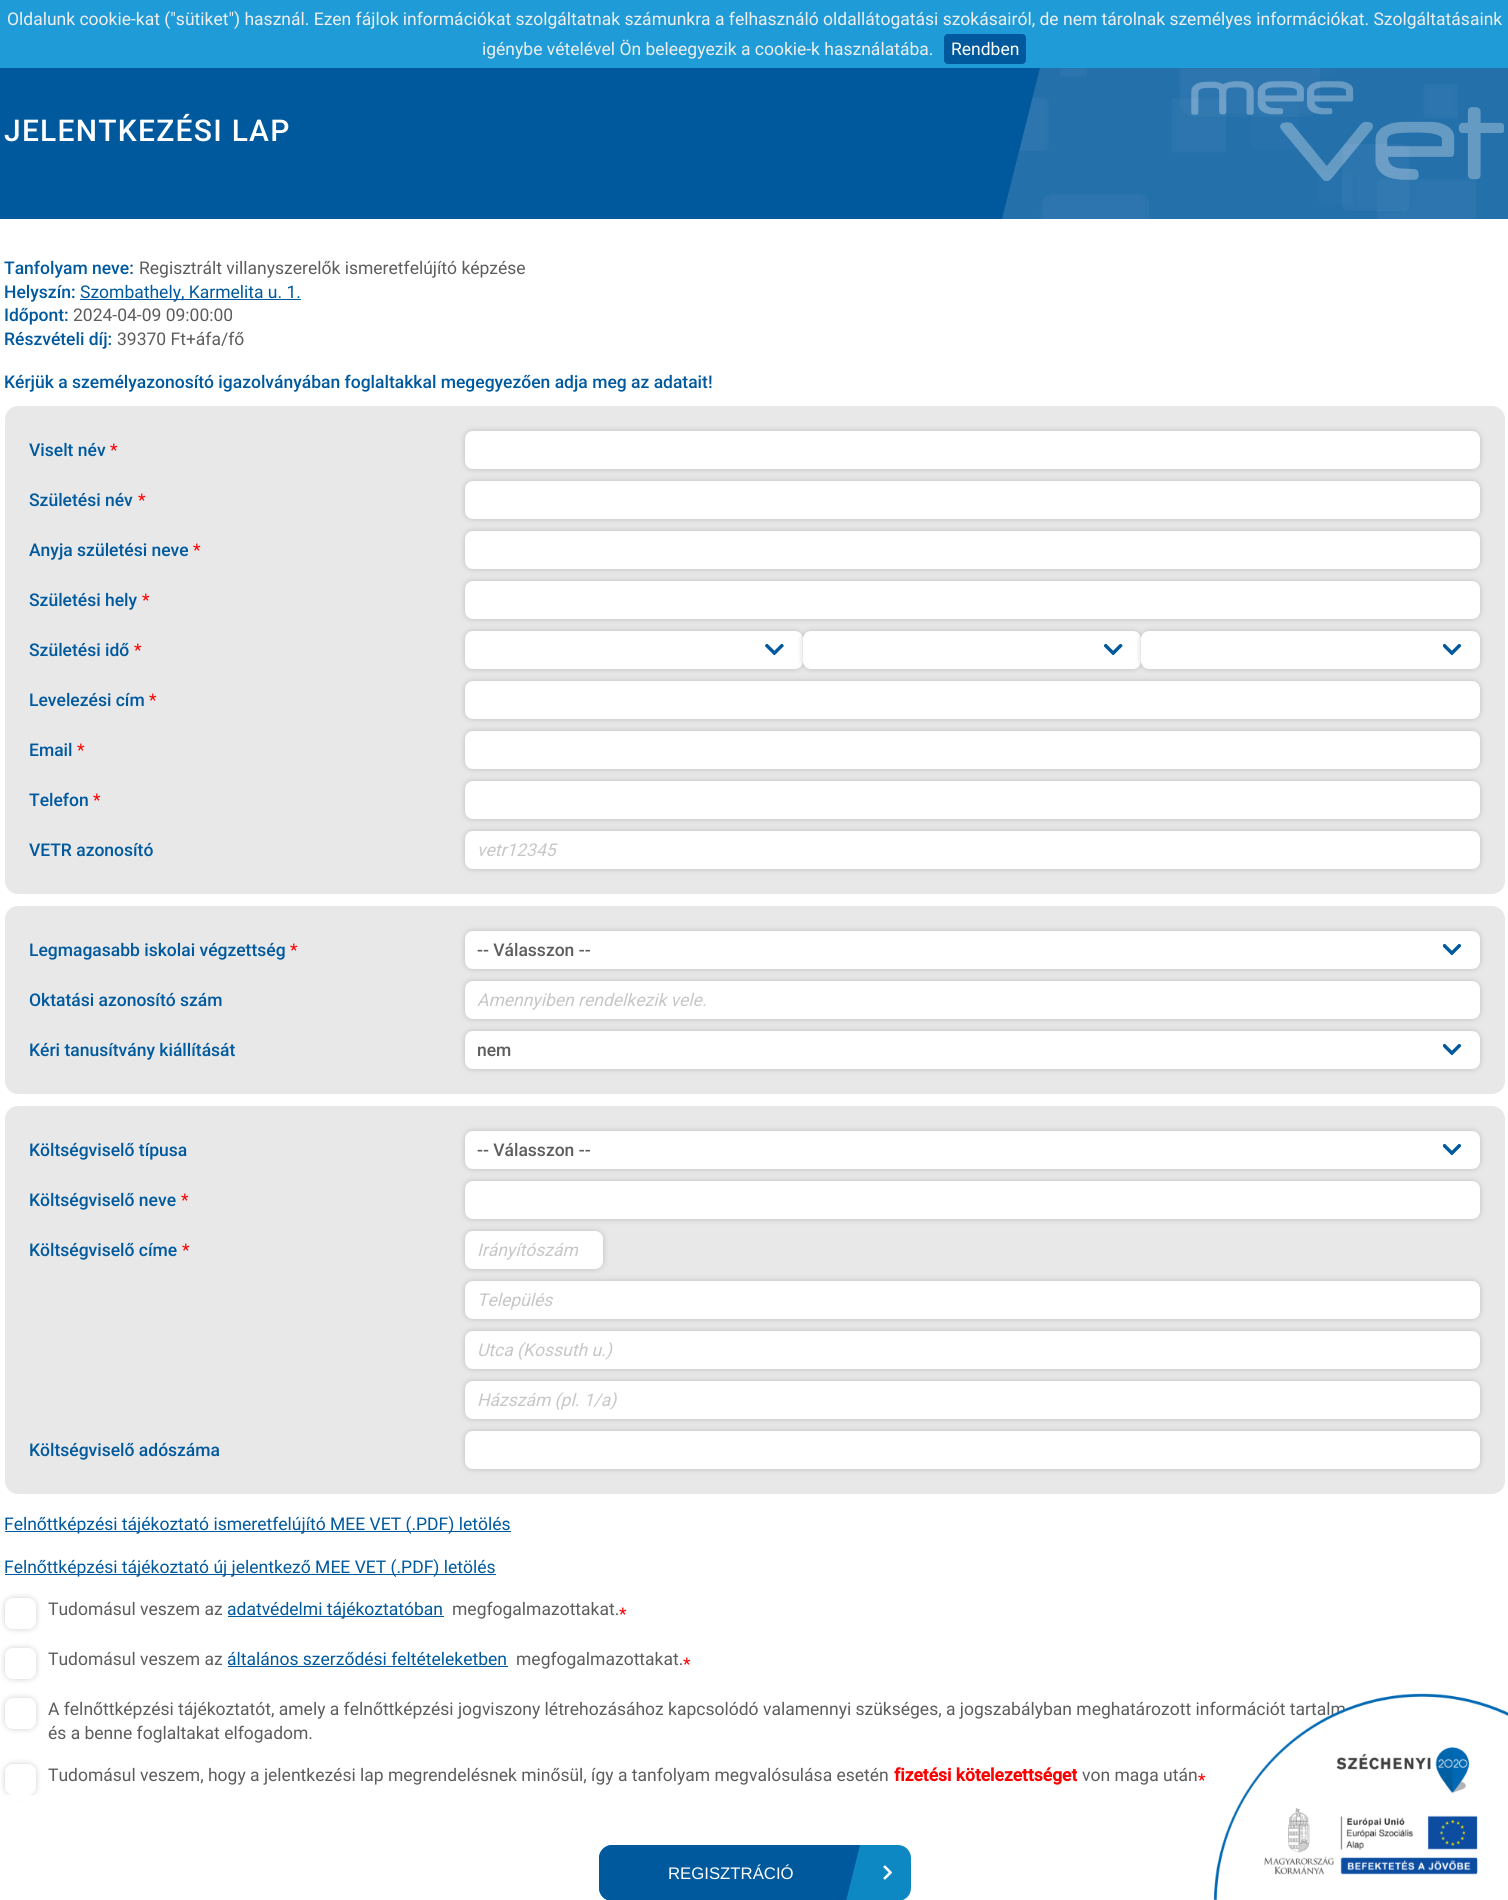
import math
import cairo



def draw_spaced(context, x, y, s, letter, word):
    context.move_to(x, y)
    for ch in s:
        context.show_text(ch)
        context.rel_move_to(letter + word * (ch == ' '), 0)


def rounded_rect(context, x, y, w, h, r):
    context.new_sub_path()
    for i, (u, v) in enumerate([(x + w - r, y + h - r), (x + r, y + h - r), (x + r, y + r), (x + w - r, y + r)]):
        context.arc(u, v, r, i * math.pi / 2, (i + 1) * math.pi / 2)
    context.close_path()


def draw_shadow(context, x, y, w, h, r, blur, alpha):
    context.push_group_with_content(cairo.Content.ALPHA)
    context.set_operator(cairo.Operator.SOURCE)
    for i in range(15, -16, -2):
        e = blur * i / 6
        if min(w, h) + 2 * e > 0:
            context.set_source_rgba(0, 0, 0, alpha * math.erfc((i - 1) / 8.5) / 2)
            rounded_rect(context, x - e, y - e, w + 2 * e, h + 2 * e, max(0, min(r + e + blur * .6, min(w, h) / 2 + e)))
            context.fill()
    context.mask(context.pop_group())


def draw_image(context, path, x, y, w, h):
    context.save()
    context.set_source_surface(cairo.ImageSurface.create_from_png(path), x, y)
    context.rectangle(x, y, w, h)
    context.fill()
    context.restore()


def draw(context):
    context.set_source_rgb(1, 1, 1)
    context.paint()
    draw_image(context, "images/1.png", 1002, 68, 506, 151)
    context.set_source_rgb(0, 89 / 255, 157 / 255)
    context.new_path()
    context.move_to(1002, 219)
    context.line_to(-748, 219)
    context.line_to(-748, 44)
    context.line_to(1002, 44)
    context.close_path()
    context.move_to(1046, 44)
    context.line_to(1002, 44)
    context.line_to(1002, 219)
    context.close_path()
    context.fill()
    context.set_source_rgb(31 / 255, 156 / 255, 215 / 255)
    context.rectangle(0, 0, 1508, 68)
    context.fill()
    context.set_source_rgb(0, 89 / 255, 157 / 255)
    rounded_rect(context, 944, 34, 82, 30, 4)
    context.fill()
    draw_image(context, "images/2.png", 1191, 81, 313, 100)
    context.rectangle(80, 299, 221, 1)
    context.fill()
    context.set_source_rgb(232 / 255, 232 / 255, 232 / 255)
    rounded_rect(context, 5, 406, 1500, 488, 13)
    context.fill()
    context.set_source_rgb(0, 0, 0)
    draw_shadow(context, 465, 431, 1015, 38, 8, 3, 0.2)
    context.set_source_rgb(1, 1, 1)
    rounded_rect(context, 465, 431, 1015, 38, 8)
    context.fill()
    context.set_source_rgb(0, 0, 0)
    draw_shadow(context, 465, 481, 1015, 38, 8, 3, 0.2)
    context.set_source_rgb(1, 1, 1)
    rounded_rect(context, 465, 481, 1015, 38, 8)
    context.fill()
    context.set_source_rgb(0, 0, 0)
    draw_shadow(context, 465, 531, 1015, 38, 8, 3, 0.2)
    context.set_source_rgb(1, 1, 1)
    rounded_rect(context, 465, 531, 1015, 38, 8)
    context.fill()
    context.set_source_rgb(0, 0, 0)
    draw_shadow(context, 465, 581, 1015, 38, 8, 3, 0.2)
    context.set_source_rgb(1, 1, 1)
    rounded_rect(context, 465, 581, 1015, 38, 8)
    context.fill()
    context.set_source_rgb(0, 0, 0)
    draw_shadow(context, 465, 631, 338, 38, 8, 3, 0.2)
    context.set_source_rgb(1, 1, 1)
    rounded_rect(context, 465, 631, 338, 38, 8)
    context.fill()
    draw_image(context, "images/3.png", 765, 644, 19, 12)
    context.set_source_rgb(0, 0, 0)
    draw_shadow(context, 803, 631, 338, 38, 8, 3, 0.2)
    context.set_source_rgb(1, 1, 1)
    rounded_rect(context, 803, 631, 338, 38, 8)
    context.fill()
    draw_image(context, "images/4.png", 1104, 644, 19, 12)
    context.set_source_rgb(0, 0, 0)
    draw_shadow(context, 1141, 631, 339, 38, 8, 3, 0.2)
    context.set_source_rgb(1, 1, 1)
    rounded_rect(context, 1141, 631, 339, 38, 8)
    context.fill()
    draw_image(context, "images/5.png", 1443, 644, 18, 12)
    context.set_source_rgb(0, 0, 0)
    draw_shadow(context, 465, 681, 1015, 38, 8, 3, 0.2)
    context.set_source_rgb(1, 1, 1)
    rounded_rect(context, 465, 681, 1015, 38, 8)
    context.fill()
    context.set_source_rgb(0, 0, 0)
    draw_shadow(context, 465, 731, 1015, 38, 8, 3, 0.2)
    context.set_source_rgb(1, 1, 1)
    rounded_rect(context, 465, 731, 1015, 38, 8)
    context.fill()
    context.set_source_rgb(0, 0, 0)
    draw_shadow(context, 465, 781, 1015, 38, 8, 3, 0.2)
    context.set_source_rgb(1, 1, 1)
    rounded_rect(context, 465, 781, 1015, 38, 8)
    context.fill()
    context.set_source_rgb(0, 0, 0)
    draw_shadow(context, 465, 831, 1015, 38, 8, 3, 0.2)
    context.set_source_rgb(1, 1, 1)
    rounded_rect(context, 465, 831, 1015, 38, 8)
    context.fill()
    context.set_source_rgb(232 / 255, 232 / 255, 232 / 255)
    rounded_rect(context, 5, 906, 1500, 188, 13)
    context.fill()
    context.set_source_rgb(0, 0, 0)
    draw_shadow(context, 465, 931, 1015, 38, 8, 3, 0.2)
    context.set_source_rgb(1, 1, 1)
    rounded_rect(context, 465, 931, 1015, 38, 8)
    context.fill()
    draw_image(context, "images/5.png", 1443, 944, 18, 12)
    context.set_source_rgb(0, 0, 0)
    draw_shadow(context, 465, 981, 1015, 38, 8, 3, 0.2)
    context.set_source_rgb(1, 1, 1)
    rounded_rect(context, 465, 981, 1015, 38, 8)
    context.fill()
    context.set_source_rgb(0, 0, 0)
    draw_shadow(context, 465, 1031, 1015, 38, 8, 3, 0.2)
    context.set_source_rgb(1, 1, 1)
    rounded_rect(context, 465, 1031, 1015, 38, 8)
    context.fill()
    draw_image(context, "images/5.png", 1443, 1044, 18, 12)
    context.set_source_rgb(232 / 255, 232 / 255, 232 / 255)
    rounded_rect(context, 5, 1106, 1500, 388, 13)
    context.fill()
    context.set_source_rgb(0, 0, 0)
    draw_shadow(context, 465, 1131, 1015, 38, 8, 3, 0.2)
    context.set_source_rgb(1, 1, 1)
    rounded_rect(context, 465, 1131, 1015, 38, 8)
    context.fill()
    draw_image(context, "images/5.png", 1443, 1144, 18, 12)
    context.set_source_rgb(0, 0, 0)
    draw_shadow(context, 465, 1181, 1015, 38, 8, 3, 0.2)
    context.set_source_rgb(1, 1, 1)
    rounded_rect(context, 465, 1181, 1015, 38, 8)
    context.fill()
    context.set_source_rgb(0, 0, 0)
    draw_shadow(context, 465, 1231, 138, 38, 8, 3, 0.2)
    context.set_source_rgb(1, 1, 1)
    rounded_rect(context, 465, 1231, 138, 38, 8)
    context.fill()
    context.set_source_rgb(0, 0, 0)
    draw_shadow(context, 465, 1281, 1015, 38, 8, 3, 0.2)
    context.set_source_rgb(1, 1, 1)
    rounded_rect(context, 465, 1281, 1015, 38, 8)
    context.fill()
    context.set_source_rgb(0, 0, 0)
    draw_shadow(context, 465, 1331, 1015, 38, 8, 3, 0.2)
    context.set_source_rgb(1, 1, 1)
    rounded_rect(context, 465, 1331, 1015, 38, 8)
    context.fill()
    context.set_source_rgb(0, 0, 0)
    draw_shadow(context, 465, 1381, 1015, 38, 8, 3, 0.2)
    context.set_source_rgb(1, 1, 1)
    rounded_rect(context, 465, 1381, 1015, 38, 8)
    context.fill()
    context.set_source_rgb(0, 0, 0)
    draw_shadow(context, 465, 1431, 1015, 38, 8, 3, 0.2)
    context.set_source_rgb(1, 1, 1)
    rounded_rect(context, 465, 1431, 1015, 38, 8)
    context.fill()
    context.set_source_rgb(0, 89 / 255, 157 / 255)
    context.rectangle(5, 1531, 506, 1)
    context.fill()
    context.rectangle(5, 1574, 491, 1)
    context.fill()
    context.set_source_rgb(0, 0, 0)
    draw_shadow(context, 5, 1598, 31, 31, 8, 3, 0.2)
    context.set_source_rgb(1, 1, 1)
    rounded_rect(context, 5, 1598, 31, 31, 8)
    context.fill()
    context.set_source_rgb(0, 89 / 255, 157 / 255)
    context.rectangle(228, 1616, 216, 1)
    context.fill()
    context.set_source_rgb(0, 0, 0)
    draw_shadow(context, 5, 1648, 31, 31, 8, 3, 0.2)
    context.set_source_rgb(1, 1, 1)
    rounded_rect(context, 5, 1648, 31, 31, 8)
    context.fill()
    context.set_source_rgb(0, 89 / 255, 157 / 255)
    context.rectangle(228, 1666, 280, 1)
    context.fill()
    context.set_source_rgb(0, 0, 0)
    draw_shadow(context, 5, 1698, 31, 31, 8, 3, 0.2)
    context.set_source_rgb(1, 1, 1)
    rounded_rect(context, 5, 1698, 31, 31, 8)
    context.fill()
    context.set_source_rgb(0, 0, 0)
    draw_shadow(context, 5, 1764, 31, 31, 8, 3, 0.2)
    context.set_source_rgb(1, 1, 1)
    rounded_rect(context, 5, 1764, 31, 31, 8)
    context.fill()
    context.rectangle(5, 1795, 32, 5)
    context.fill()
    context.set_source_rgb(14 / 255, 136 / 255, 194 / 255)
    rounded_rect(context, 599, 1845, 312, 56, 13)
    context.fill()
    context.set_source_rgb(0, 89 / 255, 157 / 255)
    context.new_path()
    context.move_to(846, 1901)
    context.line_to(860, 1845)
    context.line_to(612, 1845)
    context.curve_to(605, 1845, 599, 1851, 599, 1858)
    context.line_to(599, 1888)
    context.curve_to(599, 1895, 605, 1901, 612, 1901)
    context.close_path()
    context.fill()
    draw_image(context, "images/6.png", 883, 1865, 9, 15)
    context.select_font_face("Roboto")
    context.set_font_size(17.5)
    context.set_source_rgb(238 / 255, 238 / 255, 238 / 255)
    context.move_to(7, 25)
    context.show_text("Oldalunk cookie-kat (\"sütiket\") használ. Ezen fájlok információkat szolgáltatnak számunkra a felhasználó oldallátogatási szokásairól, de nem tárolnak személyes információkat. Szolgáltatásaink")
    context.move_to(482, 55)
    context.show_text("igénybe vételével Ön beleegyezik a cookie-k használatába.")
    context.set_source_rgb(1, 1, 1)
    context.move_to(951, 55)
    context.show_text("Rendben")
    context.select_font_face("Roboto Medium")
    context.set_font_size(30)
    draw_spaced(context, 4, 141, "JELENTKEZÉSI LAP", 1.25, 0)
    context.set_font_size(17.5)
    context.set_source_rgb(0, 89 / 255, 157 / 255)
    context.move_to(4, 274)
    context.show_text("Tanfolyam neve:")
    context.select_font_face("Roboto")
    context.set_source_rgb(93 / 255, 93 / 255, 95 / 255)
    context.move_to(139, 274)
    context.show_text("Regisztrált villanyszerelők ismeretfelújító képzése")
    context.select_font_face("Roboto Medium")
    context.set_source_rgb(0, 89 / 255, 157 / 255)
    context.move_to(4, 298)
    context.show_text("Helyszín:")
    context.select_font_face("Roboto")
    context.move_to(80, 298)
    context.show_text("Szombathely, Karmelita u. 1.")
    context.select_font_face("Roboto Medium")
    context.move_to(4, 321)
    context.show_text("Időpont:")
    context.select_font_face("Roboto")
    context.set_source_rgb(93 / 255, 93 / 255, 95 / 255)
    context.move_to(73, 321)
    context.show_text("2024-04-09 09:00:00")
    context.select_font_face("Roboto Medium")
    context.set_source_rgb(0, 89 / 255, 157 / 255)
    context.move_to(4, 345)
    context.show_text("Részvételi díj:")
    context.select_font_face("Roboto")
    context.set_source_rgb(93 / 255, 93 / 255, 95 / 255)
    context.move_to(117, 345)
    context.show_text("39370 Ft+áfa/fő")
    context.select_font_face("Roboto Medium")
    context.set_source_rgb(0, 89 / 255, 157 / 255)
    context.move_to(4, 388)
    context.show_text("Kérjük a személyazonosító igazolványában foglaltakkal megegyezően adja meg az adatait!")
    context.move_to(29, 456)
    context.show_text("Viselt név")
    context.select_font_face("Roboto")
    context.set_source_rgb(1, 0, 0)
    context.move_to(110, 456)
    context.show_text("*")
    context.select_font_face("Roboto Medium")
    context.set_source_rgb(0, 89 / 255, 157 / 255)
    context.move_to(29, 506)
    context.show_text("Születési név")
    context.select_font_face("Roboto")
    context.set_source_rgb(1, 0, 0)
    context.move_to(138, 506)
    context.show_text("*")
    context.select_font_face("Roboto Medium")
    context.set_source_rgb(0, 89 / 255, 157 / 255)
    context.move_to(29, 556)
    context.show_text("Anyja születési neve")
    context.select_font_face("Roboto")
    context.set_source_rgb(1, 0, 0)
    context.move_to(193, 556)
    context.show_text("*")
    context.select_font_face("Roboto Medium")
    context.set_source_rgb(0, 89 / 255, 157 / 255)
    context.move_to(29, 606)
    context.show_text("Születési hely")
    context.select_font_face("Roboto")
    context.set_source_rgb(1, 0, 0)
    context.move_to(142, 606)
    context.show_text("*")
    context.select_font_face("Roboto Medium")
    context.set_source_rgb(0, 89 / 255, 157 / 255)
    context.move_to(29, 656)
    context.show_text("Születési idő")
    context.select_font_face("Roboto")
    context.set_source_rgb(1, 0, 0)
    context.move_to(134, 656)
    context.show_text("*")
    context.select_font_face("Roboto Medium")
    context.set_source_rgb(0, 89 / 255, 157 / 255)
    context.move_to(29, 706)
    context.show_text("Levelezési cím")
    context.select_font_face("Roboto")
    context.set_source_rgb(1, 0, 0)
    context.move_to(149, 706)
    context.show_text("*")
    context.select_font_face("Roboto Medium")
    context.set_source_rgb(0, 89 / 255, 157 / 255)
    context.move_to(29, 756)
    context.show_text("Email")
    context.select_font_face("Roboto")
    context.set_source_rgb(1, 0, 0)
    context.move_to(77, 756)
    context.show_text("*")
    context.select_font_face("Roboto Medium")
    context.set_source_rgb(0, 89 / 255, 157 / 255)
    context.move_to(29, 806)
    context.show_text("Telefon")
    context.select_font_face("Roboto")
    context.set_source_rgb(1, 0, 0)
    context.move_to(93, 806)
    context.show_text("*")
    context.select_font_face("Roboto Medium")
    context.set_source_rgb(0, 89 / 255, 157 / 255)
    context.move_to(29, 856)
    context.show_text("VETR azonosító")
    context.select_font_face("Roboto", cairo.FontSlant.ITALIC)
    context.set_source_rgb(199 / 255, 199 / 255, 199 / 255)
    context.move_to(477, 856)
    context.show_text("vetr12345")
    context.select_font_face("Roboto Medium")
    context.set_source_rgb(0, 89 / 255, 157 / 255)
    context.move_to(29, 956)
    context.show_text("Legmagasabb iskolai végzettség")
    context.select_font_face("Roboto")
    context.set_source_rgb(1, 0, 0)
    context.move_to(290, 956)
    context.show_text("*")
    context.select_font_face("Roboto Medium")
    context.set_source_rgb(93 / 255, 93 / 255, 95 / 255)
    context.move_to(477, 956)
    context.show_text("-- Válasszon --")
    context.set_source_rgb(0, 89 / 255, 157 / 255)
    context.move_to(29, 1006)
    context.show_text("Oktatási azonosító szám")
    context.select_font_face("Roboto", cairo.FontSlant.ITALIC)
    context.set_source_rgb(199 / 255, 199 / 255, 199 / 255)
    context.move_to(477, 1006)
    context.show_text("Amennyiben rendelkezik vele.")
    context.select_font_face("Roboto Medium")
    context.set_source_rgb(0, 89 / 255, 157 / 255)
    context.move_to(29, 1056)
    context.show_text("Kéri tanusítvány kiállítását")
    context.save()
    context.rectangle(478, 1040, 946, 20)
    context.clip()
    context.set_source_rgb(93 / 255, 93 / 255, 95 / 255)
    context.move_to(477, 1056)
    context.show_text("nem")
    context.restore()
    context.move_to(29, 1156)
    context.show_text("Költségviselő típusa")
    context.set_source_rgb(93 / 255, 93 / 255, 95 / 255)
    context.move_to(477, 1156)
    context.show_text("-- Válasszon --")
    context.set_source_rgb(0, 89 / 255, 157 / 255)
    context.move_to(29, 1206)
    context.show_text("Költségviselő neve")
    context.select_font_face("Roboto")
    context.set_source_rgb(1, 0, 0)
    context.move_to(181, 1206)
    context.show_text("*")
    context.select_font_face("Roboto Medium")
    context.set_source_rgb(0, 89 / 255, 157 / 255)
    context.move_to(29, 1256)
    context.show_text("Költségviselő címe")
    context.select_font_face("Roboto")
    context.set_source_rgb(1, 0, 0)
    context.move_to(182, 1256)
    context.show_text("*")
    context.select_font_face("Roboto", cairo.FontSlant.ITALIC)
    context.set_source_rgb(199 / 255, 199 / 255, 199 / 255)
    context.move_to(477, 1256)
    context.show_text("Irányítószám")
    context.move_to(477, 1306)
    context.show_text("Település")
    context.move_to(477, 1356)
    context.show_text("Utca (Kossuth u.)")
    context.move_to(477, 1406)
    context.show_text("Házszám (pl. 1/a)")
    context.select_font_face("Roboto Medium")
    context.set_source_rgb(0, 89 / 255, 157 / 255)
    context.move_to(29, 1456)
    context.show_text("Költségviselő adószáma")
    context.select_font_face("Roboto")
    context.move_to(4, 1530)
    context.show_text("Felnőttképzési tájékoztató ismeretfelújító MEE VET (.PDF) letölés")
    context.move_to(4, 1573)
    context.show_text("Felnőttképzési tájékoztató új jelentkező MEE VET (.PDF) letölés")
    context.set_source_rgb(93 / 255, 93 / 255, 95 / 255)
    context.move_to(48, 1615)
    context.show_text("Tudomásul veszem az")
    context.set_source_rgb(0, 89 / 255, 157 / 255)
    context.move_to(227, 1615)
    context.show_text("adatvédelmi tájékoztatóban")
    context.set_source_rgb(93 / 255, 93 / 255, 95 / 255)
    context.move_to(452, 1615)
    context.show_text("megfogalmazottakat.")
    context.set_source_rgb(1, 0, 0)
    context.move_to(619, 1620)
    context.show_text("*")
    context.set_source_rgb(93 / 255, 93 / 255, 95 / 255)
    context.move_to(48, 1665)
    context.show_text("Tudomásul veszem az")
    context.set_source_rgb(0, 89 / 255, 157 / 255)
    context.move_to(227, 1665)
    context.show_text("általános szerződési feltételeketben")
    context.set_source_rgb(93 / 255, 93 / 255, 95 / 255)
    context.move_to(516, 1665)
    context.show_text("megfogalmazottakat.")
    context.set_source_rgb(1, 0, 0)
    context.move_to(683, 1670)
    context.show_text("*")
    context.set_source_rgb(93 / 255, 93 / 255, 95 / 255)
    context.move_to(48, 1715)
    context.show_text("A felnőttképzési tájékoztatót, amely a felnőttképzési jogviszony létrehozásához kapcsolódó valamennyi szükséges, a jogszabályban meghatározott információt tartalm")
    context.move_to(48, 1739)
    context.show_text("és a benne foglaltakat elfogadom.")
    context.move_to(48, 1781)
    context.show_text("Tudomásul veszem, hogy a jelentkezési lap megrendelésnek minősül, így a tanfolyam megvalósulása esetén")
    context.select_font_face("Roboto", cairo.FontSlant.NORMAL, cairo.FontWeight.BOLD)
    context.set_source_rgb(1, 0, 0)
    context.move_to(894, 1781)
    context.show_text("fizetési kötelezettséget")
    context.select_font_face("Roboto")
    context.set_source_rgb(93 / 255, 93 / 255, 95 / 255)
    context.move_to(1082, 1781)
    context.show_text("von maga után")
    context.set_source_rgb(1, 0, 0)
    context.move_to(1198, 1786)
    context.show_text("*")
    context.select_font_face("Liberation Sans")
    context.set_font_size(16.75)
    context.set_source_rgb(1, 1, 1)
    context.move_to(668, 1879)
    context.show_text("REGISZTRÁCIÓ")
    draw_image(context, "images/7.png", 1213, 1693, 295, 207)


surface = cairo.ImageSurface(cairo.Format.RGB24, 1508, 1900)
context = cairo.Context(surface)
options = cairo.FontOptions()
options.set_hint_metrics(cairo.HintMetrics.OFF)
options.set_hint_style(cairo.HintStyle.NONE)
context.set_font_options(options)
context.set_miter_limit(4)
draw(context)
surface.write_to_png("out.png")
